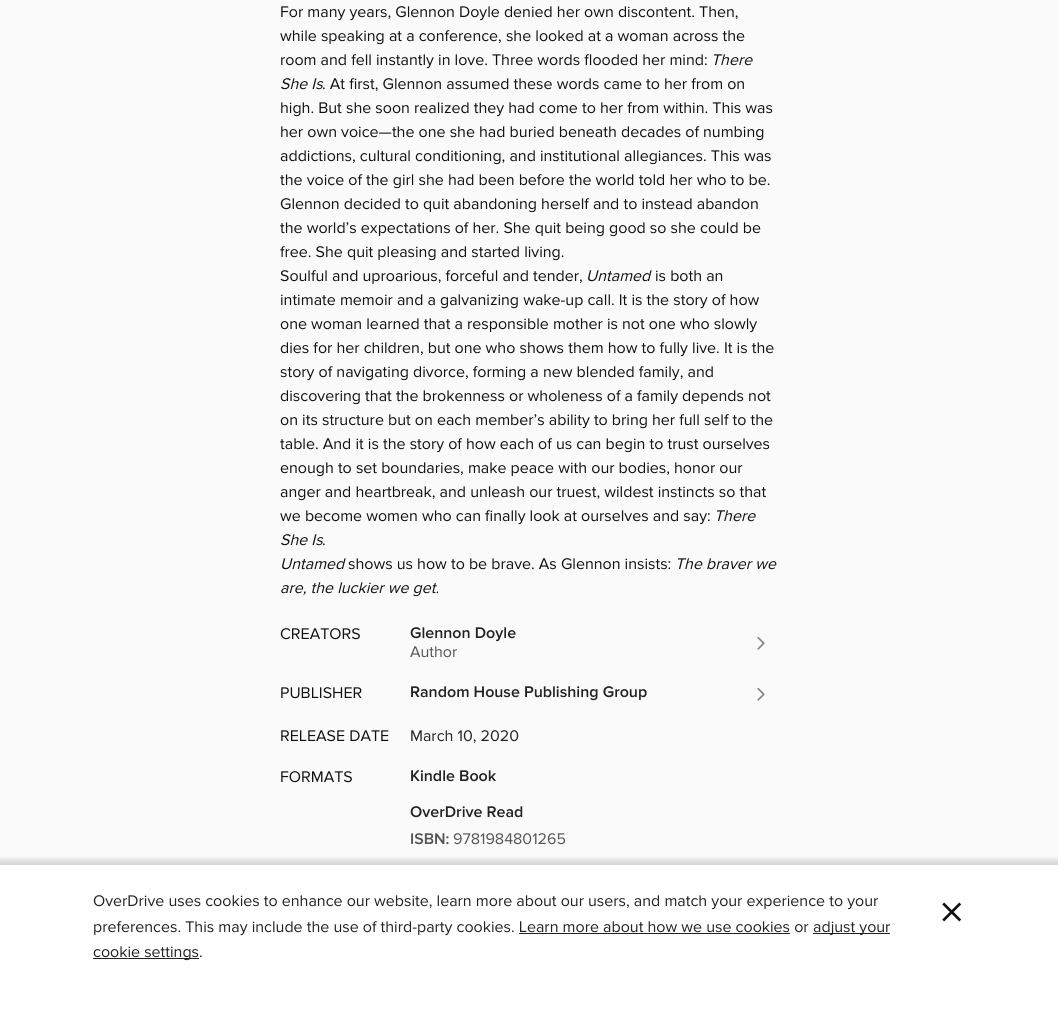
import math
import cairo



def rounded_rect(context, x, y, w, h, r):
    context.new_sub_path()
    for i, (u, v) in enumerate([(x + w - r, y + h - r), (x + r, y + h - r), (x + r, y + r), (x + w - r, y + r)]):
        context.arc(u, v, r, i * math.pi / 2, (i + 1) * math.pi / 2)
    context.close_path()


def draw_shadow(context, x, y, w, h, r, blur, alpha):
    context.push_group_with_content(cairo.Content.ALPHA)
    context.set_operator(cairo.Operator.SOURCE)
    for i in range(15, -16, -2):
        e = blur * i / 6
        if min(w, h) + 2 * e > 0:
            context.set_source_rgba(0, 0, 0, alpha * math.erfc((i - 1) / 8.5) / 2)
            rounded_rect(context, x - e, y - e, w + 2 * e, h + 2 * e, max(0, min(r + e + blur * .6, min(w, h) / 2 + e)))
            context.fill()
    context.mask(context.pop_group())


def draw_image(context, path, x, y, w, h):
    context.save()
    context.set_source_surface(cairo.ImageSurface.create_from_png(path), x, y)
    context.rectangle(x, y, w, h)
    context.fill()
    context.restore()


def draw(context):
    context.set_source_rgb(250 / 255, 250 / 255, 250 / 255)
    context.paint()
    draw_image(context, "images/1.png", 757, 636, 8, 14)
    draw_image(context, "images/1.png", 757, 687, 8, 14)
    context.set_source_rgb(0, 0, 0)
    draw_shadow(context, -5, 860, 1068, 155, 0, 2.5, 0.15)
    context.set_source_rgb(1, 1, 1)
    context.rectangle(0, 865, 1058, 145)
    context.fill()
    context.set_source_rgb(34 / 255, 34 / 255, 34 / 255)
    context.rectangle(519, 933, 271, 1)
    context.fill()
    context.rectangle(813, 933, 77, 1)
    context.fill()
    context.rectangle(93, 958, 106, 1)
    context.fill()
    context.select_font_face("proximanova")
    context.set_font_size(16)
    context.set_source_rgb(17 / 255, 17 / 255, 17 / 255)
    context.move_to(280, 17)
    context.show_text("For many years, Glennon Doyle denied her own discontent. Then,")
    context.move_to(280, 41)
    context.show_text("while speaking at a conference, she looked at a woman across the")
    context.move_to(280, 65)
    context.show_text("room and fell instantly in love. Three words flooded her mind:")
    context.select_font_face("proximanova", cairo.FontSlant.ITALIC)
    context.move_to(711, 65)
    context.show_text("There")
    context.move_to(280, 89)
    context.show_text("She Is")
    context.select_font_face("proximanova")
    context.move_to(322, 89)
    context.show_text(". At first, Glennon assumed these words came to her from on")
    context.move_to(280, 113)
    context.show_text("high. But she soon realized they had come to her from within. This was")
    context.move_to(280, 137)
    context.show_text("her own voice—the one she had buried beneath decades of numbing")
    context.move_to(280, 161)
    context.show_text("addictions, cultural conditioning, and institutional allegiances. This was")
    context.move_to(280, 185)
    context.show_text("the voice of the girl she had been before the world told her who to be.")
    context.move_to(280, 209)
    context.show_text("Glennon decided to quit abandoning herself and to instead abandon")
    context.move_to(280, 233)
    context.show_text("the world’s expectations of her. She quit being good so she could be")
    context.move_to(280, 257)
    context.show_text("free. She quit pleasing and started living.")
    context.move_to(280, 281)
    context.show_text("Soulful and uproarious, forceful and tender,")
    context.select_font_face("proximanova", cairo.FontSlant.ITALIC)
    context.move_to(586, 281)
    context.show_text("Untamed")
    context.select_font_face("proximanova")
    context.move_to(655, 281)
    context.show_text("is both an")
    context.move_to(280, 305)
    context.show_text("intimate memoir and a galvanizing wake-up call. It is the story of how")
    context.move_to(280, 329)
    context.show_text("one woman learned that a responsible mother is not one who slowly")
    context.move_to(280, 353)
    context.show_text("dies for her children, but one who shows them how to fully live. It is the")
    context.move_to(280, 377)
    context.show_text("story of navigating divorce, forming a new blended family, and")
    context.move_to(280, 401)
    context.show_text("discovering that the brokenness or wholeness of a family depends not")
    context.move_to(280, 425)
    context.show_text("on its structure but on each member’s ability to bring her full self to the")
    context.move_to(280, 449)
    context.show_text("table. And it is the story of how each of us can begin to trust ourselves")
    context.move_to(280, 473)
    context.show_text("enough to set boundaries, make peace with our bodies, honor our")
    context.move_to(280, 497)
    context.show_text("anger and heartbreak, and unleash our truest, wildest instincts so that")
    context.move_to(280, 521)
    context.show_text("we become women who can finally look at ourselves and say:")
    context.select_font_face("proximanova", cairo.FontSlant.ITALIC)
    context.move_to(714, 521)
    context.show_text("There")
    context.move_to(280, 545)
    context.show_text("She Is")
    context.select_font_face("proximanova")
    context.move_to(322, 545)
    context.show_text(".")
    context.select_font_face("proximanova", cairo.FontSlant.ITALIC)
    context.move_to(280, 569)
    context.show_text("Untamed")
    context.select_font_face("proximanova")
    context.move_to(348, 569)
    context.show_text("shows us how to be brave. As Glennon insists:")
    context.select_font_face("proximanova", cairo.FontSlant.ITALIC)
    context.move_to(675, 569)
    context.show_text("The braver we")
    context.move_to(280, 593)
    context.show_text("are, the luckier we get.")
    context.select_font_face("proximanova")
    context.move_to(280, 639)
    context.show_text("CREATORS")
    context.select_font_face("Proxima Nova SemiBold")
    context.set_source_rgb(34 / 255, 34 / 255, 34 / 255)
    context.move_to(410, 638)
    context.show_text("Glennon Doyle")
    context.select_font_face("proximanova")
    context.set_source_rgb(85 / 255, 85 / 255, 85 / 255)
    context.move_to(410, 657)
    context.show_text("Author")
    context.set_source_rgb(17 / 255, 17 / 255, 17 / 255)
    context.move_to(280, 698)
    context.show_text("PUBLISHER")
    context.select_font_face("Proxima Nova SemiBold")
    context.set_source_rgb(34 / 255, 34 / 255, 34 / 255)
    context.move_to(410, 697)
    context.show_text("Random House Publishing Group")
    context.select_font_face("proximanova")
    context.set_source_rgb(17 / 255, 17 / 255, 17 / 255)
    context.move_to(280, 741)
    context.show_text("RELEASE DATE")
    context.set_source_rgb(34 / 255, 34 / 255, 34 / 255)
    context.move_to(410, 741)
    context.show_text("March 10, 2020")
    context.set_source_rgb(17 / 255, 17 / 255, 17 / 255)
    context.move_to(280, 782)
    context.show_text("FORMATS")
    context.select_font_face("Proxima Nova SemiBold")
    context.set_source_rgb(34 / 255, 34 / 255, 34 / 255)
    context.move_to(410, 781)
    context.show_text("Kindle Book")
    context.move_to(410, 817)
    context.show_text("OverDrive Read")
    context.set_source_rgb(85 / 255, 85 / 255, 85 / 255)
    context.move_to(410, 844)
    context.show_text("ISBN:")
    context.select_font_face("proximanova")
    context.move_to(453, 844)
    context.show_text("9781984801265")
    context.set_source_rgb(34 / 255, 34 / 255, 34 / 255)
    context.move_to(93, 906)
    context.show_text("OverDrive uses cookies to enhance our website, learn more about our users, and match your experience to your")
    context.move_to(93, 932)
    context.show_text("preferences. This may include the use of third-party cookies. Learn more about how we use cookies or")
    context.move_to(813, 932)
    context.show_text("adjust your")
    context.move_to(93, 957)
    context.show_text("cookie settings.")
    context.set_font_size(51)
    context.set_source_rgb(17 / 255, 17 / 255, 17 / 255)
    context.move_to(939, 929)
    context.show_text("×")


surface = cairo.ImageSurface(cairo.Format.RGB24, 1058, 1010)
context = cairo.Context(surface)
options = cairo.FontOptions()
options.set_hint_metrics(cairo.HintMetrics.OFF)
options.set_hint_style(cairo.HintStyle.NONE)
context.set_font_options(options)
context.set_miter_limit(4)
draw(context)
surface.write_to_png("out.png")
